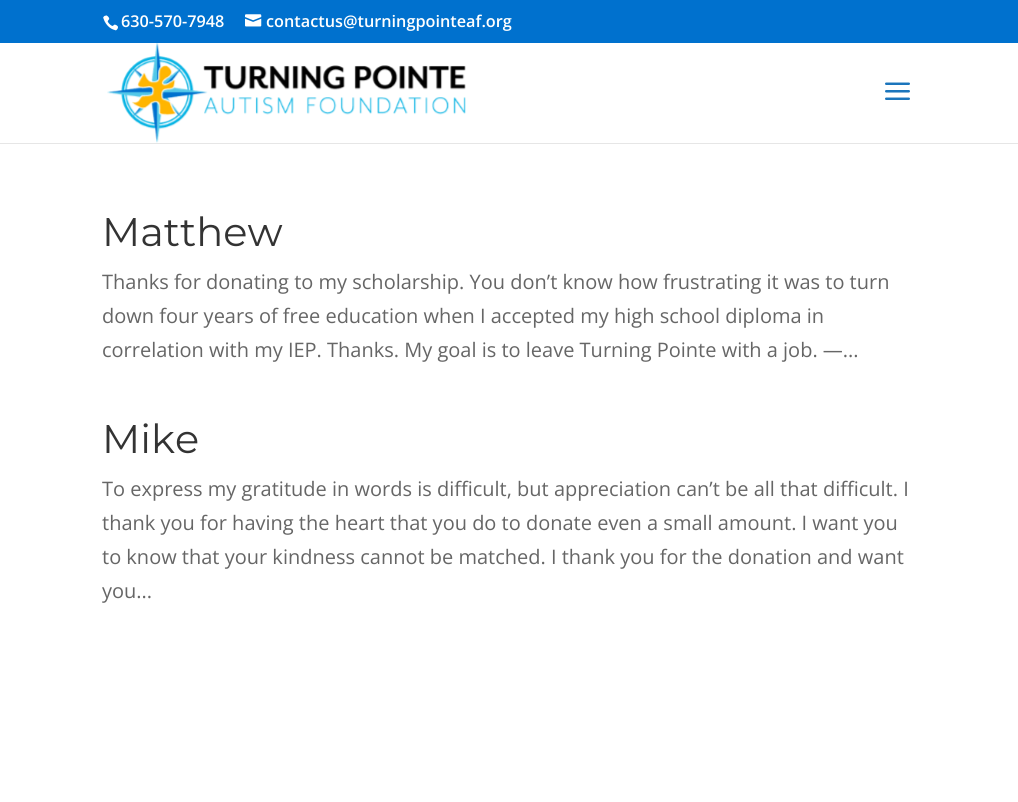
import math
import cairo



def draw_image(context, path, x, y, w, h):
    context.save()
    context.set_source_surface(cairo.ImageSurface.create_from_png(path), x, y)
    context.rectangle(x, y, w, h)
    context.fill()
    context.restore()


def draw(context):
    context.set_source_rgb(1, 1, 1)
    context.paint()
    context.set_source_rgb(0, 113 / 255, 206 / 255)
    context.rectangle(0, 0, 1018, 43)
    context.fill()
    draw_image(context, "images/1.png", 103, 15, 15, 16)
    draw_image(context, "images/2.png", 245, 14, 17, 13)
    context.set_source_rgb(230 / 255, 230 / 255, 230 / 255)
    context.new_path()
    context.move_to(0, 142)
    context.line_to(0, 144)
    context.line_to(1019, 144)
    context.line_to(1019, 44)
    context.line_to(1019, 142)
    context.close_path()
    context.fill()
    context.set_source_rgb(1, 1, 1)
    context.rectangle(0, 142, 1018, 1)
    context.fill()
    draw_image(context, "images/3.png", 107, 43, 359, 100)
    draw_image(context, "images/4.png", 885, 82, 25, 18)
    context.select_font_face("Open Sans SemiBold")
    context.set_font_size(16.25)
    context.move_to(121, 27)
    context.show_text("630-570-7948")
    context.move_to(266, 27)
    context.show_text("contactus@turningpointeaf.org")
    context.select_font_face("Montserrat Thin")
    context.set_font_size(40)
    context.set_source_rgb(51 / 255, 51 / 255, 51 / 255)
    context.move_to(102, 246)
    context.show_text("Matthew")
    context.select_font_face("Open Sans")
    context.set_font_size(20)
    context.set_source_rgb(102 / 255, 102 / 255, 102 / 255)
    context.move_to(102, 289)
    context.show_text("Thanks for donating to my scholarship. You don’t know how frustrating it was to turn")
    context.move_to(102, 323)
    context.show_text("down four years of free education when I accepted my high school diploma in")
    context.move_to(102, 357)
    context.show_text("correlation with my IEP. Thanks. My goal is to leave Turning Pointe with a job. —...")
    context.select_font_face("Montserrat Thin")
    context.set_font_size(40)
    context.set_source_rgb(51 / 255, 51 / 255, 51 / 255)
    context.move_to(102, 453)
    context.show_text("Mike")
    context.select_font_face("Open Sans")
    context.set_font_size(20)
    context.set_source_rgb(102 / 255, 102 / 255, 102 / 255)
    context.move_to(102, 496)
    context.show_text("To express my gratitude in words is difficult, but appreciation can’t be all that difficult. I")
    context.move_to(102, 530)
    context.show_text("thank you for having the heart that you do to donate even a small amount. I want you")
    context.move_to(102, 564)
    context.show_text("to know that your kindness cannot be matched. I thank you for the donation and want")
    context.move_to(102, 598)
    context.show_text("you...")


surface = cairo.ImageSurface(cairo.Format.RGB24, 1018, 802)
context = cairo.Context(surface)
options = cairo.FontOptions()
options.set_hint_metrics(cairo.HintMetrics.OFF)
options.set_hint_style(cairo.HintStyle.NONE)
context.set_font_options(options)
context.set_miter_limit(4)
draw(context)
surface.write_to_png("out.png")
